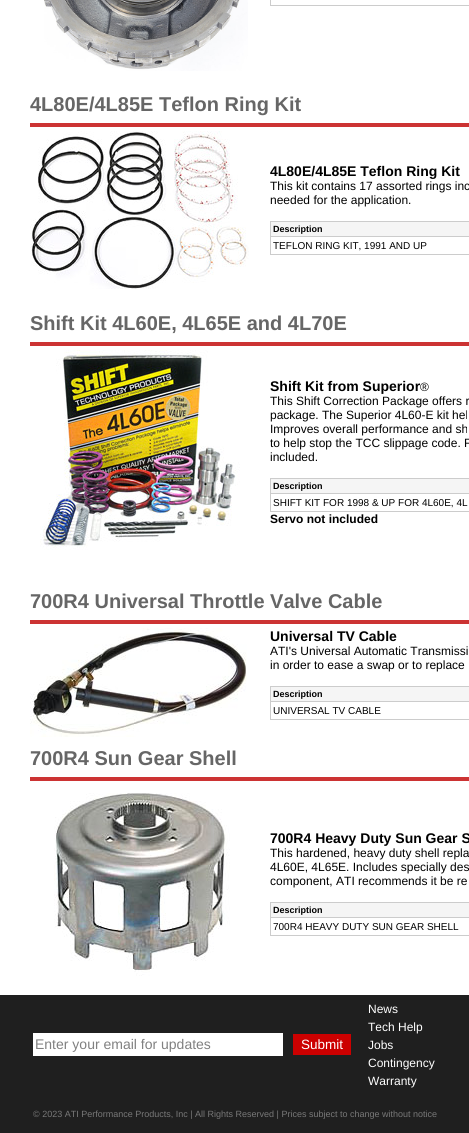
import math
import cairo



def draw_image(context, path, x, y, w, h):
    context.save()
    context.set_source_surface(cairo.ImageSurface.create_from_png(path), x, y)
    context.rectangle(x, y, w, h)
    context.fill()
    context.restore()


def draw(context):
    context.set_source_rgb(31 / 255, 31 / 255, 31 / 255)
    context.paint()
    context.set_source_rgb(1, 1, 1)
    context.rectangle(0, 0, 469, 995)
    context.fill()
    draw_image(context, "images/1.png", 44, 0, 204, 71)
    context.set_source_rgb(204 / 255, 204 / 255, 204 / 255)
    context.rectangle(270, 0, 199, 6)
    context.fill()
    context.set_source_rgb(1, 1, 1)
    context.rectangle(271, 0, 198, 5)
    context.fill()
    context.set_source_rgb(204 / 255, 51 / 255, 51 / 255)
    context.rectangle(30, 123, 439, 4)
    context.fill()
    draw_image(context, "images/2.png", 30, 131, 219, 158)
    context.set_source_rgb(204 / 255, 204 / 255, 204 / 255)
    context.rectangle(270, 221, 199, 34)
    context.fill()
    context.set_source_rgb(245 / 255, 245 / 255, 245 / 255)
    context.rectangle(271, 222, 198, 14)
    context.fill()
    context.set_source_rgb(1, 1, 1)
    context.rectangle(271, 237, 198, 17)
    context.fill()
    context.set_source_rgb(204 / 255, 51 / 255, 51 / 255)
    context.rectangle(30, 342, 439, 4)
    context.fill()
    draw_image(context, "images/3.png", 40, 350, 200, 200)
    context.set_source_rgb(204 / 255, 204 / 255, 204 / 255)
    context.rectangle(270, 478, 199, 34)
    context.fill()
    context.set_source_rgb(245 / 255, 245 / 255, 245 / 255)
    context.rectangle(271, 479, 198, 14)
    context.fill()
    context.set_source_rgb(1, 1, 1)
    context.rectangle(271, 494, 198, 17)
    context.fill()
    context.set_source_rgb(204 / 255, 51 / 255, 51 / 255)
    context.rectangle(30, 620, 439, 4)
    context.fill()
    draw_image(context, "images/4.png", 30, 628, 217, 109)
    context.set_source_rgb(204 / 255, 204 / 255, 204 / 255)
    context.rectangle(270, 686, 199, 34)
    context.fill()
    context.set_source_rgb(245 / 255, 245 / 255, 245 / 255)
    context.rectangle(271, 687, 198, 14)
    context.fill()
    context.set_source_rgb(1, 1, 1)
    context.rectangle(271, 702, 198, 17)
    context.fill()
    context.set_source_rgb(204 / 255, 51 / 255, 51 / 255)
    context.rectangle(30, 777, 439, 4)
    context.fill()
    draw_image(context, "images/5.png", 54, 793, 176, 183)
    context.set_source_rgb(204 / 255, 204 / 255, 204 / 255)
    context.rectangle(270, 902, 199, 34)
    context.fill()
    context.set_source_rgb(245 / 255, 245 / 255, 245 / 255)
    context.rectangle(271, 903, 198, 14)
    context.fill()
    context.set_source_rgb(1, 1, 1)
    context.rectangle(271, 918, 198, 17)
    context.fill()
    context.rectangle(33, 1033, 250, 23)
    context.fill()
    context.set_source_rgb(204 / 255, 0, 0)
    context.rectangle(293, 1034, 58, 21)
    context.fill()
    context.select_font_face("Liberation Sans", cairo.FontSlant.NORMAL, cairo.FontWeight.BOLD)
    context.set_font_size(20)
    context.set_source_rgb(102 / 255, 102 / 255, 102 / 255)
    context.move_to(30, 111)
    context.show_text("4L80E/4L85E Teflon Ring Kit")
    context.set_font_size(14)
    context.set_source_rgb(0, 0, 0)
    context.move_to(270, 176)
    context.show_text("4L80E/4L85E Teflon Ring Kit")
    context.select_font_face("Liberation Sans")
    context.set_font_size(12)
    context.move_to(270, 190)
    context.show_text("This kit contains 17 assorted rings inc")
    context.move_to(270, 204)
    context.show_text("needed for the application.")
    context.select_font_face("Liberation Sans", cairo.FontSlant.NORMAL, cairo.FontWeight.BOLD)
    context.set_font_size(9)
    context.move_to(273, 232)
    context.show_text("Description")
    context.select_font_face("Liberation Sans")
    context.set_font_size(10)
    context.move_to(273, 249)
    context.show_text("TEFLON RING KIT, 1991 AND UP")
    context.select_font_face("Liberation Sans", cairo.FontSlant.NORMAL, cairo.FontWeight.BOLD)
    context.set_font_size(20)
    context.set_source_rgb(102 / 255, 102 / 255, 102 / 255)
    context.move_to(30, 330)
    context.show_text("Shift Kit 4L60E, 4L65E and 4L70E")
    context.set_font_size(14)
    context.set_source_rgb(0, 0, 0)
    context.move_to(270, 391)
    context.show_text("Shift Kit from Superior")
    context.select_font_face("Liberation Sans")
    context.set_font_size(12)
    context.move_to(420, 391)
    context.show_text("®")
    context.move_to(270, 405)
    context.show_text("This Shift Correction Package offers r")
    context.move_to(270, 419)
    context.show_text("package. The Superior 4L60-E kit hel")
    context.move_to(270, 433)
    context.show_text("Improves overall performance and sh")
    context.move_to(270, 447)
    context.show_text("to help stop the TCC slippage code. F")
    context.move_to(270, 461)
    context.show_text("included.")
    context.select_font_face("Liberation Sans", cairo.FontSlant.NORMAL, cairo.FontWeight.BOLD)
    context.set_font_size(9)
    context.move_to(273, 489)
    context.show_text("Description")
    context.select_font_face("Liberation Sans")
    context.set_font_size(10)
    context.move_to(273, 506)
    context.show_text("SHIFT KIT FOR 1998 & UP FOR 4L60E, 4L")
    context.select_font_face("Liberation Sans", cairo.FontSlant.NORMAL, cairo.FontWeight.BOLD)
    context.set_font_size(12)
    context.move_to(270, 523)
    context.show_text("Servo not included")
    context.set_font_size(20)
    context.set_source_rgb(102 / 255, 102 / 255, 102 / 255)
    context.move_to(30, 608)
    context.show_text("700R4 Universal Throttle Valve Cable")
    context.set_font_size(14)
    context.set_source_rgb(0, 0, 0)
    context.move_to(270, 641)
    context.show_text("Universal TV Cable")
    context.select_font_face("Liberation Sans")
    context.set_font_size(12)
    context.move_to(270, 655)
    context.show_text("ATI's Universal Automatic Transmissi")
    context.move_to(270, 669)
    context.show_text("in order to ease a swap or to replace")
    context.select_font_face("Liberation Sans", cairo.FontSlant.NORMAL, cairo.FontWeight.BOLD)
    context.set_font_size(9)
    context.move_to(273, 697)
    context.show_text("Description")
    context.select_font_face("Liberation Sans")
    context.set_font_size(10)
    context.move_to(273, 714)
    context.show_text("UNIVERSAL TV CABLE")
    context.select_font_face("Liberation Sans", cairo.FontSlant.NORMAL, cairo.FontWeight.BOLD)
    context.set_font_size(20)
    context.set_source_rgb(102 / 255, 102 / 255, 102 / 255)
    context.move_to(30, 765)
    context.show_text("700R4 Sun Gear Shell")
    context.set_font_size(14)
    context.set_source_rgb(0, 0, 0)
    context.move_to(270, 843)
    context.show_text("700R4 Heavy Duty Sun Gear S")
    context.select_font_face("Liberation Sans")
    context.set_font_size(12)
    context.move_to(270, 857)
    context.show_text("This hardened, heavy duty shell repla")
    context.move_to(270, 871)
    context.show_text("4L60E, 4L65E. Includes specially des")
    context.move_to(270, 885)
    context.show_text("component, ATI recommends it be re")
    context.select_font_face("Liberation Sans", cairo.FontSlant.NORMAL, cairo.FontWeight.BOLD)
    context.set_font_size(9)
    context.move_to(273, 913)
    context.show_text("Description")
    context.select_font_face("Liberation Sans")
    context.set_font_size(10)
    context.move_to(273, 930)
    context.show_text("700R4 HEAVY DUTY SUN GEAR SHELL")
    context.set_font_size(14)
    context.set_source_rgb(128 / 255, 128 / 255, 128 / 255)
    context.move_to(35, 1049)
    context.show_text("Enter your email for updates")
    context.set_font_size(13.5)
    context.set_source_rgb(1, 1, 1)
    context.move_to(301, 1049)
    context.show_text("Submit")
    context.set_font_size(12)
    context.move_to(368, 1013)
    context.show_text("News")
    context.move_to(368, 1031)
    context.show_text("Tech Help")
    context.move_to(368, 1049)
    context.show_text("Jobs")
    context.move_to(368, 1067)
    context.show_text("Contingency")
    context.move_to(368, 1085)
    context.show_text("Warranty")
    context.set_font_size(9)
    context.set_source_rgb(120 / 255, 120 / 255, 120 / 255)
    context.move_to(33, 1117)
    context.show_text("© 2023 ATI Performance Products, Inc | All Rights Reserved | Prices subject to change without notice")


surface = cairo.ImageSurface(cairo.Format.RGB24, 469, 1133)
context = cairo.Context(surface)
options = cairo.FontOptions()
options.set_hint_metrics(cairo.HintMetrics.OFF)
options.set_hint_style(cairo.HintStyle.NONE)
context.set_font_options(options)
context.set_miter_limit(4)
draw(context)
surface.write_to_png("out.png")
